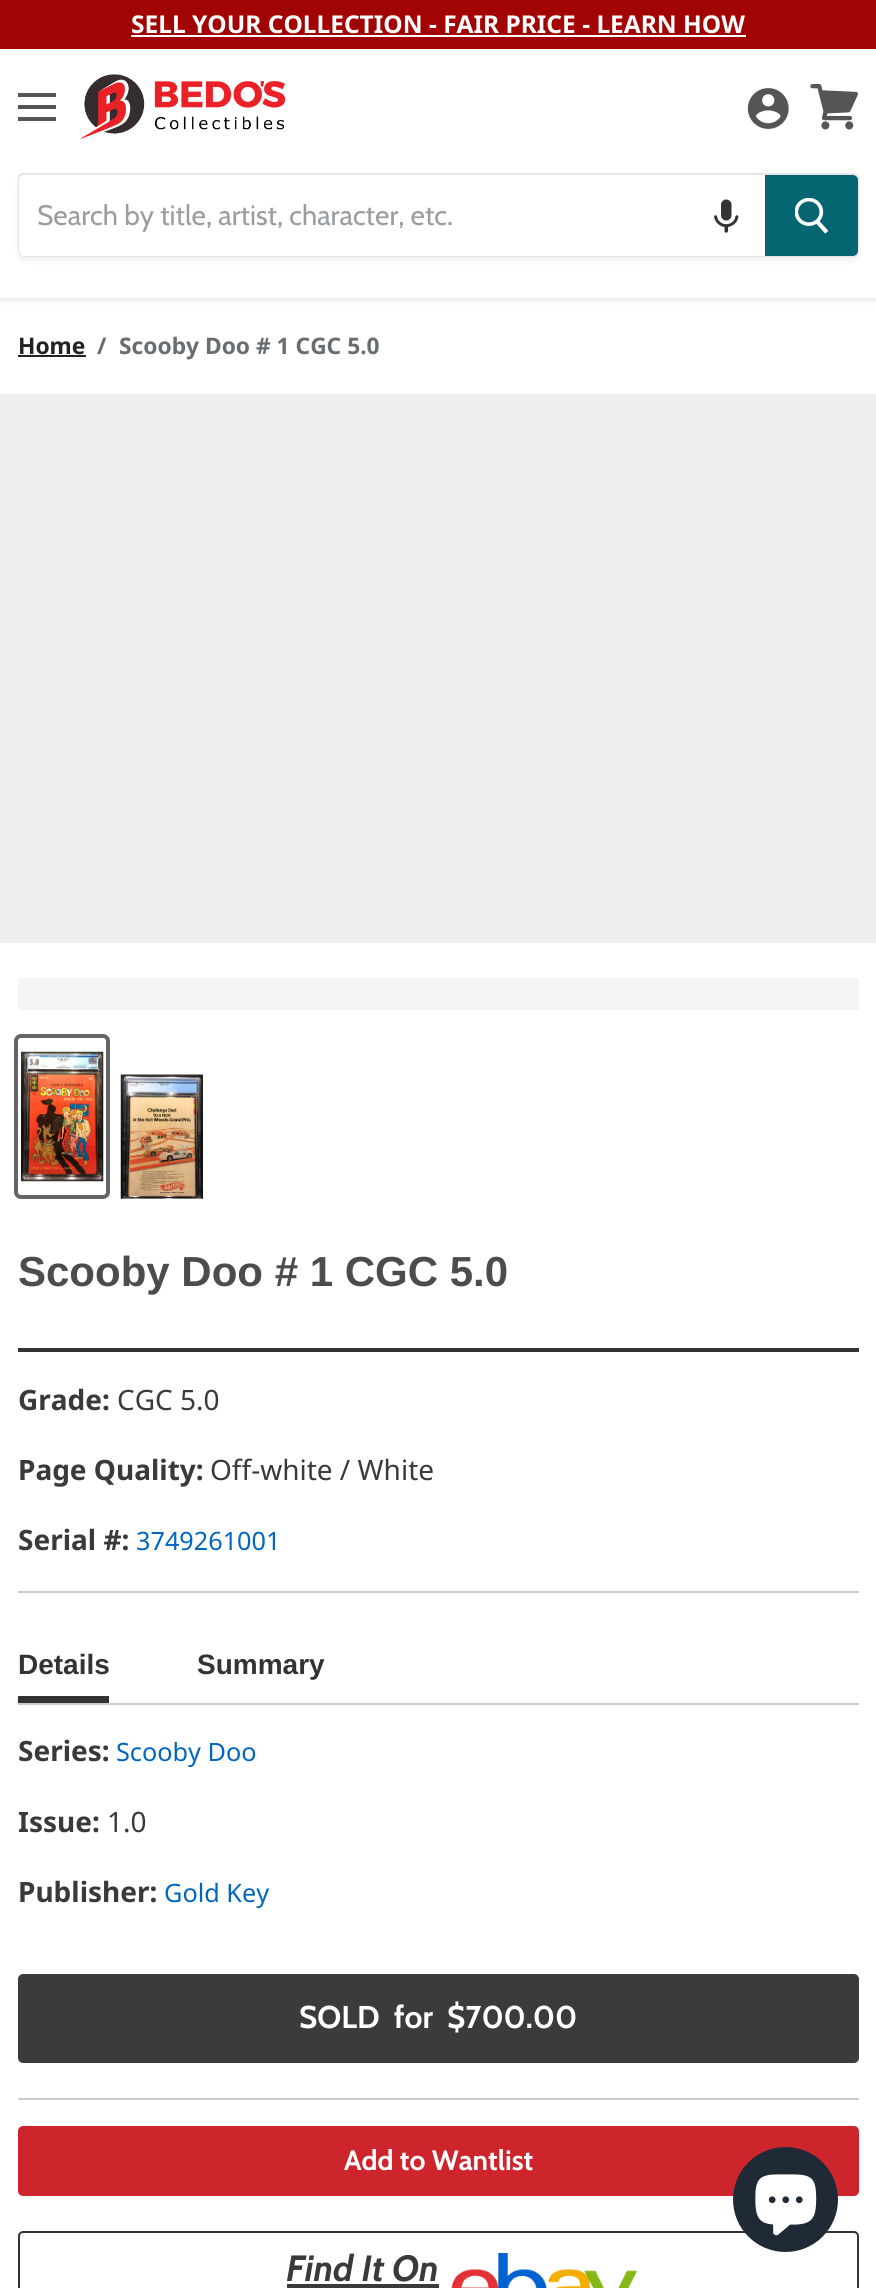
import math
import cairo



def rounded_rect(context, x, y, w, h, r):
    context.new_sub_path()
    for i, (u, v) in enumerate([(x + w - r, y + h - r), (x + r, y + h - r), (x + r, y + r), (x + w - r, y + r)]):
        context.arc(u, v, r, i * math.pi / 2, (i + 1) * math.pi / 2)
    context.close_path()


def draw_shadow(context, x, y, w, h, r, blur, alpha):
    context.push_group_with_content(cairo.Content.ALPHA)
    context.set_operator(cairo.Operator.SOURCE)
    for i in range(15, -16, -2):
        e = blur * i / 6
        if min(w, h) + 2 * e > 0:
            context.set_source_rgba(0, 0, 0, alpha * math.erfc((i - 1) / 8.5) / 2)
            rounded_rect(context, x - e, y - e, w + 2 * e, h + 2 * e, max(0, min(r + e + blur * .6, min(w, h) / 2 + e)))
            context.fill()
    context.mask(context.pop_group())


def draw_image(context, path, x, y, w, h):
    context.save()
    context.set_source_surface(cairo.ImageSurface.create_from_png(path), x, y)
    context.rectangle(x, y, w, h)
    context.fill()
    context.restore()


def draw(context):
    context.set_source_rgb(1, 1, 1)
    context.paint()
    context.set_source_rgb(127 / 255, 127 / 255, 127 / 255)
    draw_shadow(context, 0, 2, 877, 297, 0, 3.5, 0.25)
    context.set_source_rgb(1, 1, 1)
    context.rectangle(0, 49, 876, 249)
    context.fill()
    context.set_source_rgb(162 / 255, 4 / 255, 4 / 255)
    context.rectangle(0, 0, 876, 49)
    context.fill()
    context.set_source_rgb(1, 1, 1)
    context.rectangle(131, 35, 615, 2)
    context.fill()
    context.set_source_rgb(85 / 255, 85 / 255, 85 / 255)
    context.rectangle(18, 93, 38, 4)
    context.fill()
    context.rectangle(18, 105, 38, 4)
    context.fill()
    context.rectangle(18, 117, 38, 4)
    context.fill()
    draw_image(context, "images/1.png", 80, 74, 206, 65)
    draw_image(context, "images/2.png", 747, 88, 42, 41)
    draw_image(context, "images/3.png", 810, 84, 48, 46)
    context.set_source_rgb(127 / 255, 127 / 255, 127 / 255)
    draw_shadow(context, 18, 177, 841, 84, 7, 2.5, 0.11)
    context.new_path()
    context.move_to(23, 174)
    context.line_to(852, 174)
    context.curve_to(855.5, 174, 858, 176.5, 858, 180)
    context.line_to(858, 250)
    context.curve_to(858, 253.5, 855.5, 256, 852, 256)
    context.line_to(23, 256)
    context.curve_to(21, 256, 19, 254, 19, 252)
    context.line_to(19, 178)
    context.curve_to(19, 176, 21, 174, 23, 174)
    context.close_path()
    context.set_source_rgb(229 / 255, 229 / 255, 229 / 255)
    context.stroke()
    context.set_source_rgb(1, 1, 1)
    context.new_path()
    context.move_to(24, 175)
    context.line_to(765, 175)
    context.line_to(765, 256)
    context.line_to(24, 256)
    context.curve_to(21, 256, 19, 254, 19, 251)
    context.line_to(19, 180)
    context.curve_to(19, 177, 21, 175, 24, 175)
    context.close_path()
    context.fill()
    draw_image(context, "images/4.png", 714, 199, 25, 34)
    context.set_source_rgb(5 / 255, 101 / 255, 113 / 255)
    context.new_path()
    context.move_to(766, 176)
    context.line_to(853, 176)
    context.curve_to(855, 176, 857, 178, 857, 180)
    context.line_to(857, 251)
    context.curve_to(857, 253, 855, 255, 853, 255)
    context.line_to(766, 255)
    context.close_path()
    context.fill_preserve()
    context.stroke()
    draw_image(context, "images/5.png", 795, 198, 34, 36)
    context.set_source_rgb(34 / 255, 34 / 255, 34 / 255)
    context.rectangle(18, 355, 68, 2)
    context.fill()
    context.set_source_rgb(238 / 255, 238 / 255, 238 / 255)
    context.rectangle(0, 394, 876, 549)
    context.fill()
    context.set_source_rgb(244 / 255, 245 / 255, 245 / 255)
    context.rectangle(18, 978, 841, 32)
    context.fill()
    rounded_rect(context, 16, 1036, 92, 161, 5)
    context.set_source_rgb(102 / 255, 102 / 255, 102 / 255)
    context.set_line_width(4)
    context.stroke()
    draw_image(context, "images/6.png", 21, 1051, 83, 131)
    draw_image(context, "images/7.png", 120, 1074, 83, 125)
    context.set_source_rgb(51 / 255, 51 / 255, 51 / 255)
    context.rectangle(18, 1348, 841, 4)
    context.fill()
    context.set_source_rgb(204 / 255, 204 / 255, 204 / 255)
    context.rectangle(18, 1591, 841, 2)
    context.fill()
    context.rectangle(18, 1703, 841, 2)
    context.fill()
    context.set_source_rgb(51 / 255, 51 / 255, 51 / 255)
    context.rectangle(18, 1696, 91, 7)
    context.fill()
    context.set_source_rgb(59 / 255, 59 / 255, 59 / 255)
    rounded_rect(context, 19, 1975, 839, 87, 4)
    context.fill_preserve()
    context.set_line_width(2)
    context.stroke()
    context.set_source_rgb(204 / 255, 204 / 255, 204 / 255)
    context.rectangle(18, 2098, 841, 2)
    context.fill()
    context.set_source_rgb(206 / 255, 37 / 255, 45 / 255)
    rounded_rect(context, 19, 2127, 839, 68, 4)
    context.fill_preserve()
    context.stroke()
    rounded_rect(context, 19, 2232, 839, 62, 4)
    context.set_source_rgb(51 / 255, 51 / 255, 51 / 255)
    context.stroke()
    context.set_source_rgb(58 / 255, 58 / 255, 58 / 255)
    context.rectangle(287, 2284, 152, 4)
    context.fill()
    draw_image(context, "images/8.png", 451, 2253, 187, 35)
    context.set_source_rgb(32 / 255, 42 / 255, 54 / 255)
    context.arc(785.5, 2199.5, 52.5, 0, 2 * math.pi)
    context.fill()
    draw_image(context, "images/9.png", 755, 2174, 62, 62)
    context.select_font_face("Noto Sans", cairo.FontSlant.NORMAL, cairo.FontWeight.BOLD)
    context.set_font_size(24.5)
    context.set_source_rgb(1, 1, 1)
    context.move_to(131, 33)
    context.show_text("SELL YOUR COLLECTION - FAIR PRICE - LEARN HOW")
    context.select_font_face("Cabin")
    context.set_font_size(28)
    context.set_source_rgb(153 / 255, 157 / 255, 160 / 255)
    context.move_to(37, 225)
    context.show_text("Search by title, artist, character, etc.")
    context.select_font_face("Noto Sans", cairo.FontSlant.NORMAL, cairo.FontWeight.BOLD)
    context.set_font_size(22.75)
    context.set_source_rgb(34 / 255, 34 / 255, 34 / 255)
    context.move_to(18, 354)
    context.show_text("Home")
    context.set_source_rgb(103 / 255, 109 / 255, 112 / 255)
    context.move_to(97, 354)
    context.show_text("/")
    context.move_to(119, 354)
    context.show_text("Scooby Doo # 1 CGC 5.0")
    context.select_font_face("Liberation Sans", cairo.FontSlant.NORMAL, cairo.FontWeight.BOLD)
    context.set_font_size(42)
    context.set_source_rgb(76 / 255, 76 / 255, 76 / 255)
    context.move_to(18, 1286)
    context.show_text("Scooby Doo # 1 CGC 5.0")
    context.select_font_face("Noto Sans", cairo.FontSlant.NORMAL, cairo.FontWeight.BOLD)
    context.set_font_size(28)
    context.set_source_rgb(58 / 255, 58 / 255, 58 / 255)
    context.move_to(18, 1410)
    context.show_text("Grade:")
    context.select_font_face("Noto Sans")
    context.move_to(117, 1410)
    context.show_text("CGC 5.0")
    context.select_font_face("Noto Sans", cairo.FontSlant.NORMAL, cairo.FontWeight.BOLD)
    context.move_to(18, 1480)
    context.show_text("Page Quality:")
    context.select_font_face("Noto Sans")
    context.move_to(210, 1480)
    context.show_text("Off-white / White")
    context.select_font_face("Noto Sans", cairo.FontSlant.NORMAL, cairo.FontWeight.BOLD)
    context.move_to(18, 1550)
    context.show_text("Serial #:")
    context.select_font_face("Noto Sans")
    context.set_font_size(25.25)
    context.set_source_rgb(0, 102 / 255, 192 / 255)
    context.move_to(136, 1550)
    context.show_text("3749261001")
    context.select_font_face("Liberation Sans", cairo.FontSlant.NORMAL, cairo.FontWeight.BOLD)
    context.set_font_size(28)
    context.set_source_rgb(51 / 255, 51 / 255, 51 / 255)
    context.move_to(18, 1674)
    context.show_text("Details")
    context.move_to(197, 1674)
    context.show_text("Summary")
    context.select_font_face("Noto Sans", cairo.FontSlant.NORMAL, cairo.FontWeight.BOLD)
    context.set_source_rgb(58 / 255, 58 / 255, 58 / 255)
    context.move_to(18, 1761)
    context.show_text("Series:")
    context.select_font_face("Noto Sans")
    context.set_font_size(25.25)
    context.set_source_rgb(0, 102 / 255, 192 / 255)
    context.move_to(116, 1761)
    context.show_text("Scooby Doo")
    context.select_font_face("Noto Sans", cairo.FontSlant.NORMAL, cairo.FontWeight.BOLD)
    context.set_font_size(28)
    context.set_source_rgb(58 / 255, 58 / 255, 58 / 255)
    context.move_to(18, 1832)
    context.show_text("Issue:")
    context.select_font_face("Noto Sans")
    context.move_to(107, 1832)
    context.show_text("1.0")
    context.select_font_face("Noto Sans", cairo.FontSlant.NORMAL, cairo.FontWeight.BOLD)
    context.move_to(18, 1902)
    context.show_text("Publisher:")
    context.select_font_face("Noto Sans")
    context.set_font_size(25.25)
    context.set_source_rgb(0, 102 / 255, 192 / 255)
    context.move_to(164, 1902)
    context.show_text("Gold Key")
    context.select_font_face("Cabin", cairo.FontSlant.NORMAL, cairo.FontWeight.BOLD)
    context.set_font_size(31.5)
    context.set_source_rgb(1, 1, 1)
    context.move_to(299, 2028)
    context.show_text("SOLD  for  $700.00")
    context.set_font_size(28)
    context.move_to(344, 2170)
    context.show_text("Add to Wantlist")
    context.select_font_face("Cabin", cairo.FontSlant.ITALIC, cairo.FontWeight.BOLD)
    context.set_font_size(36.5)
    context.set_source_rgb(58 / 255, 58 / 255, 58 / 255)
    context.move_to(286, 2281)
    context.show_text("Find It On")


surface = cairo.ImageSurface(cairo.Format.RGB24, 876, 2288)
context = cairo.Context(surface)
options = cairo.FontOptions()
options.set_hint_metrics(cairo.HintMetrics.OFF)
options.set_hint_style(cairo.HintStyle.NONE)
context.set_font_options(options)
context.set_miter_limit(4)
draw(context)
surface.write_to_png("out.png")
